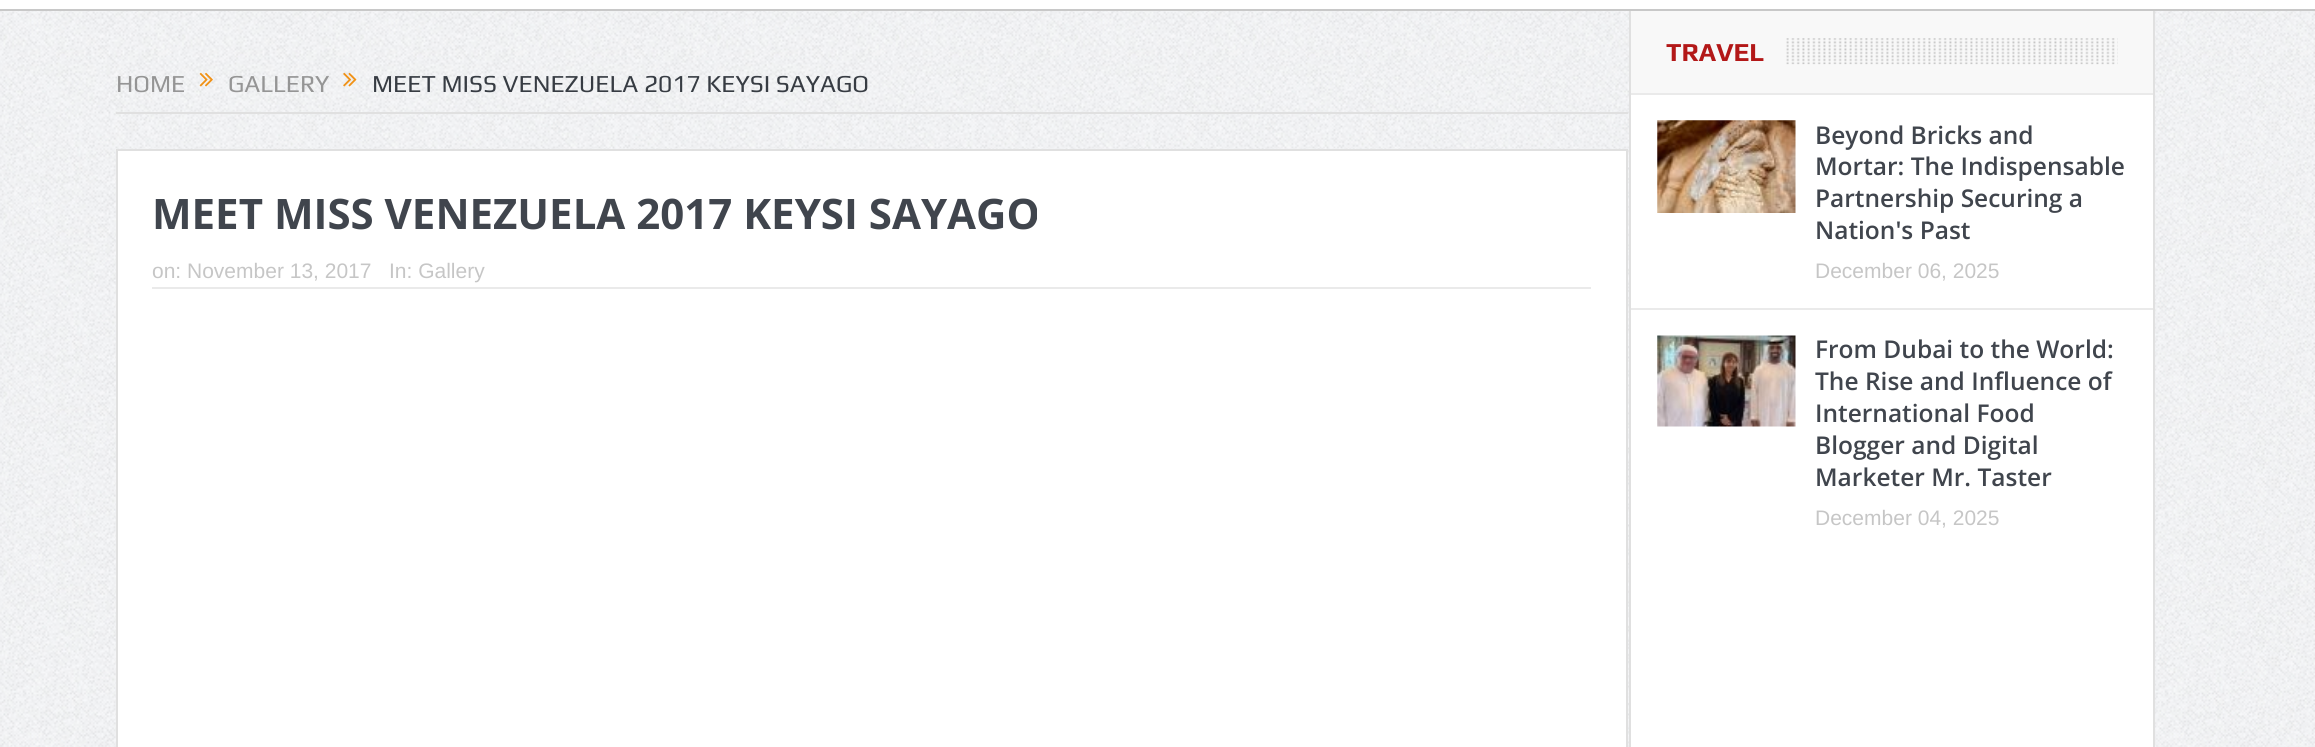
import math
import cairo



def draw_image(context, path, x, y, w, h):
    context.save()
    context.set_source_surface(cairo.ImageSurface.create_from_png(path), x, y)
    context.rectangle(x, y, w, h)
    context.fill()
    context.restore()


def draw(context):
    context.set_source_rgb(1, 1, 1)
    context.paint()
    draw_image(context, "images/1.png", 0, 11, 2315, 736)
    context.set_source_rgb(200 / 255, 200 / 255, 200 / 255)
    context.rectangle(0, 9, 2315, 2)
    context.fill()
    context.set_source_rgb(224 / 255, 224 / 255, 224 / 255)
    context.rectangle(116, 112, 1512, 2)
    context.fill()
    draw_image(context, "images/2.png", 199, 72, 14, 15)
    draw_image(context, "images/3.png", 343, 72, 14, 15)
    context.set_source_rgb(1, 1, 1)
    context.rectangle(117, 150, 1510, 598)
    context.fill_preserve()
    context.set_source_rgb(224 / 255, 224 / 255, 224 / 255)
    context.stroke()
    context.set_source_rgb(234 / 255, 234 / 255, 234 / 255)
    context.rectangle(152, 287, 1439, 2)
    context.fill()
    context.set_source_rgb(1, 1, 1)
    context.rectangle(1631, 95, 522, 652)
    context.fill()
    context.set_source_rgb(224 / 255, 224 / 255, 224 / 255)
    context.rectangle(2153, 11, 2, 736)
    context.fill()
    context.rectangle(1629, 11, 2, 736)
    context.fill()
    context.set_source_rgb(248 / 255, 248 / 255, 248 / 255)
    context.rectangle(1631, 11, 522, 82)
    context.fill()
    context.set_source_rgb(234 / 255, 234 / 255, 234 / 255)
    context.rectangle(1631, 93, 522, 2)
    context.fill()
    draw_image(context, "images/4.png", 1786, 38, 332, 27)
    context.rectangle(1631, 308, 522, 2)
    context.fill()
    draw_image(context, "images/5.png", 1657, 120, 139, 93)
    draw_image(context, "images/6.png", 1657, 335, 139, 92)
    context.select_font_face("Play")
    context.set_font_size(24.5)
    context.set_source_rgb(149 / 255, 149 / 255, 149 / 255)
    context.move_to(116, 92)
    context.show_text("HOME")
    context.move_to(228, 92)
    context.show_text("GALLERY")
    context.set_source_rgb(55 / 255, 60 / 255, 67 / 255)
    context.move_to(372, 92)
    context.show_text("MEET MISS VENEZUELA 2017 KEYSI SAYAGO")
    context.select_font_face("Open Sans", cairo.FontSlant.NORMAL, cairo.FontWeight.BOLD)
    context.set_font_size(42)
    context.set_source_rgb(64 / 255, 69 / 255, 77 / 255)
    context.move_to(152, 229)
    context.show_text("MEET MISS VENEZUELA 2017 KEYSI SAYAGO")
    context.select_font_face("Liberation Sans")
    context.set_font_size(21)
    context.set_source_rgb(198 / 255, 198 / 255, 198 / 255)
    context.move_to(152, 278)
    context.show_text("on: November 13, 2017")
    context.move_to(389, 278)
    context.show_text("In: Gallery")
    context.select_font_face("Play", cairo.FontSlant.NORMAL, cairo.FontWeight.BOLD)
    context.set_font_size(26)
    context.set_source_rgb(179 / 255, 24 / 255, 24 / 255)
    context.move_to(1666, 61)
    context.show_text("TRAVEL")
    context.select_font_face("Open Sans SemiBold")
    context.set_font_size(24.5)
    context.set_source_rgb(64 / 255, 69 / 255, 77 / 255)
    context.move_to(1815, 144)
    context.show_text("Beyond Bricks and")
    context.move_to(1815, 175)
    context.show_text("Mortar: The Indispensable")
    context.move_to(1815, 207)
    context.show_text("Partnership Securing a")
    context.move_to(1815, 239)
    context.show_text("Nation's Past")
    context.select_font_face("Liberation Sans")
    context.set_font_size(21)
    context.set_source_rgb(198 / 255, 198 / 255, 198 / 255)
    context.move_to(1815, 278)
    context.show_text("December 06, 2025")
    context.select_font_face("Open Sans SemiBold")
    context.set_font_size(24.5)
    context.set_source_rgb(64 / 255, 69 / 255, 77 / 255)
    context.move_to(1815, 358)
    context.show_text("From Dubai to the World:")
    context.move_to(1815, 390)
    context.show_text("The Rise and Influence of")
    context.move_to(1815, 422)
    context.show_text("International Food")
    context.move_to(1815, 454)
    context.show_text("Blogger and Digital")
    context.move_to(1815, 486)
    context.show_text("Marketer Mr. Taster")
    context.select_font_face("Liberation Sans")
    context.set_font_size(21)
    context.set_source_rgb(198 / 255, 198 / 255, 198 / 255)
    context.move_to(1815, 525)
    context.show_text("December 04, 2025")


surface = cairo.ImageSurface(cairo.Format.RGB24, 2315, 747)
context = cairo.Context(surface)
options = cairo.FontOptions()
options.set_hint_metrics(cairo.HintMetrics.OFF)
options.set_hint_style(cairo.HintStyle.NONE)
context.set_font_options(options)
context.set_miter_limit(4)
draw(context)
surface.write_to_png("out.png")
